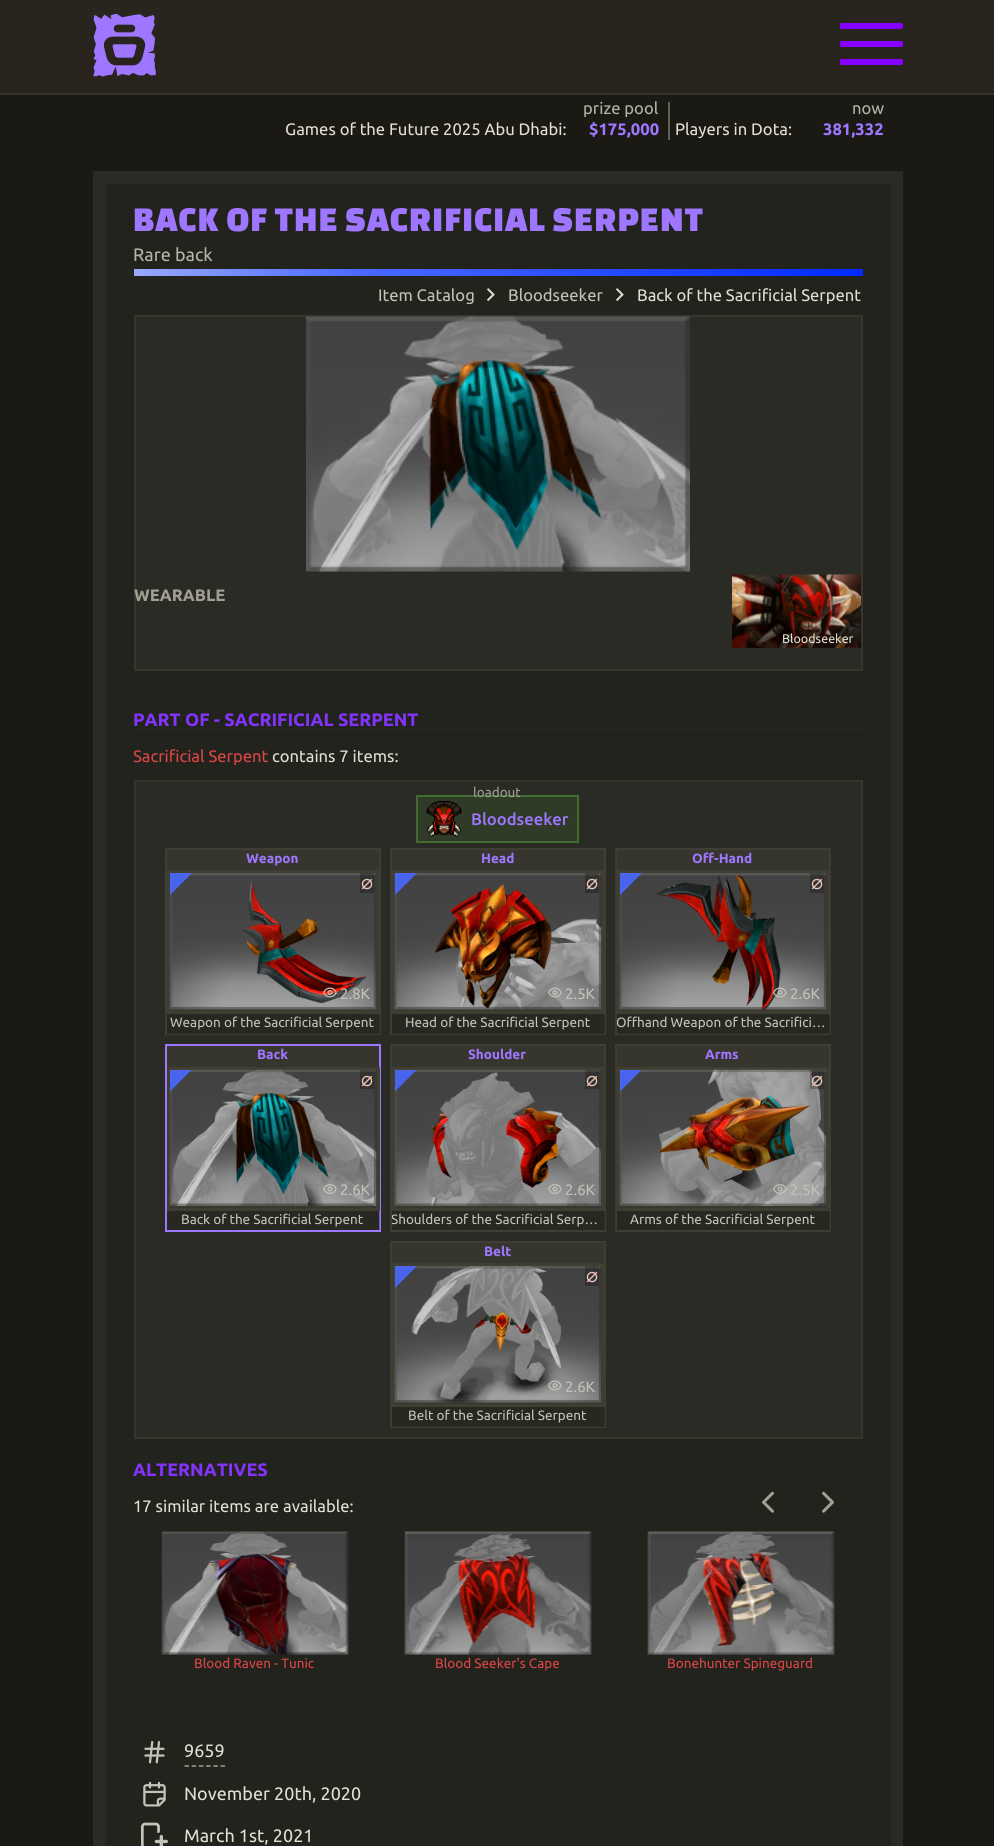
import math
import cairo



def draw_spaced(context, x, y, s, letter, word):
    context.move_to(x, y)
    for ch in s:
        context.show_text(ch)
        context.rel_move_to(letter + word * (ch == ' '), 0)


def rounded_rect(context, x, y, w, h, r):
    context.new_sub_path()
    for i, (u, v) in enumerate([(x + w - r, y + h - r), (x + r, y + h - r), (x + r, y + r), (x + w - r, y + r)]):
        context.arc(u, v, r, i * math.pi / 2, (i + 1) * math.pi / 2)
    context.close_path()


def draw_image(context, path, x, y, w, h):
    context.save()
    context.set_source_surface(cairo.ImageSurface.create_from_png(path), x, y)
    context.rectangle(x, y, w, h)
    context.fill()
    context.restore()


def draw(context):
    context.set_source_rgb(26 / 255, 25 / 255, 20 / 255)
    context.paint()
    gradient = cairo.LinearGradient(497, 0, 497, 93)
    gradient.add_color_stop_rgba(0, 40 / 255, 36 / 255, 30 / 255, 1)
    gradient.add_color_stop_rgba(1, 40 / 255, 36 / 255, 29 / 255, 1)
    context.set_source(gradient)
    context.rectangle(0, 0, 994, 93)
    context.fill()
    context.set_source_rgb(54 / 255, 50 / 255, 43 / 255)
    context.rectangle(0, 93, 994, 2)
    context.fill()
    draw_image(context, "images/1.png", 93, 14, 63, 63)
    context.set_source_rgb(136 / 255, 0, 1)
    rounded_rect(context, 840, 41, 63, 6, 1.5)
    context.fill()
    rounded_rect(context, 840, 23, 63, 6, 1.5)
    context.fill()
    rounded_rect(context, 840, 59, 63, 6, 1.5)
    context.fill()
    context.set_source_rgb(96 / 255, 95 / 255, 88 / 255)
    context.rectangle(668, 102, 2, 38)
    context.fill()
    context.set_source_rgb(43 / 255, 43 / 255, 37 / 255)
    context.rectangle(93, 171, 810, 1675)
    context.fill()
    context.set_source_rgb(35 / 255, 35 / 255, 30 / 255)
    context.rectangle(106, 184, 785, 1662)
    context.fill()
    gradient = cairo.LinearGradient(134, 272, 863, 272)
    gradient.add_color_stop_rgba(0, 152 / 255, 169 / 255, 1, 1)
    gradient.add_color_stop_rgba(0.31, 75 / 255, 105 / 255, 1, 1)
    gradient.add_color_stop_rgba(1, 0, 42 / 255, 254 / 255, 1)
    context.set_source(gradient)
    context.rectangle(134, 269, 729, 7)
    context.fill()
    draw_image(context, "images/2.png", 486, 288, 9, 14)
    draw_image(context, "images/2.png", 615, 288, 9, 14)
    context.set_source_rgb(43 / 255, 43 / 255, 37 / 255)
    context.rectangle(135, 316, 727, 354)
    context.fill_preserve()
    context.set_source_rgb(56 / 255, 53 / 255, 47 / 255)
    context.stroke()
    draw_image(context, "images/3.png", 306, 316, 384, 256)
    draw_image(context, "images/4.png", 732, 574, 129, 74)
    context.set_source_rgba(0, 0, 0, 0.25)
    context.rectangle(732, 629, 129, 19)
    context.fill()
    context.set_source_rgb(32 / 255, 32 / 255, 27 / 255)
    context.rectangle(134, 734, 729, 2)
    context.fill()
    context.set_source_rgb(43 / 255, 43 / 255, 37 / 255)
    context.rectangle(135, 781, 727, 657)
    context.fill_preserve()
    context.set_source_rgb(56 / 255, 53 / 255, 47 / 255)
    context.stroke()
    context.set_source_rgba(0, 0, 0, 0.05)
    context.rectangle(135, 782, 1, 655)
    context.fill()
    context.set_source_rgb(47 / 255, 59 / 255, 39 / 255)
    context.rectangle(417, 796, 161, 46)
    context.fill_preserve()
    context.set_source_rgb(64 / 255, 107 / 255, 49 / 255)
    context.stroke()
    draw_image(context, "images/5.png", 426, 801, 36, 36)
    context.set_source_rgb(54 / 255, 54 / 255, 46 / 255)
    context.rectangle(166, 849, 214, 185)
    context.fill_preserve()
    context.set_source_rgb(62 / 255, 62 / 255, 52 / 255)
    context.stroke()
    context.set_source_rgba(56 / 255, 56 / 255, 47 / 255, 0.9)
    rounded_rect(context, 167, 870, 213, 144, 1.5)
    context.fill()
    context.rectangle(168.5, 871.5, 210, 141)
    context.set_source_rgba(64 / 255, 64 / 255, 53 / 255, 0.8)
    context.set_line_width(3)
    context.stroke()
    draw_image(context, "images/6.png", 169, 873, 208, 137)
    context.save()
    context.rectangle(170, 873, 207, 138)
    context.clip()
    context.set_source_rgba(75 / 255, 105 / 255, 1, 0.9)
    context.new_path()
    context.move_to(169.5, 873)
    context.line_to(192, 873)
    context.line_to(169.5, 895.5)
    context.close_path()
    context.fill()
    context.restore()
    context.set_source_rgba(0, 0, 0, 0.25)
    context.rectangle(360, 873, 14, 20)
    context.fill()
    draw_image(context, "images/7.png", 323, 987, 14, 11)
    context.rectangle(167, 1014, 213, 20)
    context.fill()
    context.set_source_rgb(54 / 255, 54 / 255, 46 / 255)
    context.rectangle(391, 849, 214, 185)
    context.fill_preserve()
    context.set_source_rgb(62 / 255, 62 / 255, 52 / 255)
    context.set_line_width(2)
    context.stroke()
    context.set_source_rgba(56 / 255, 56 / 255, 47 / 255, 0.9)
    rounded_rect(context, 392, 870, 213, 144, 1.5)
    context.fill()
    context.rectangle(393.5, 871.5, 210, 141)
    context.set_source_rgba(64 / 255, 64 / 255, 53 / 255, 0.8)
    context.set_line_width(3)
    context.stroke()
    draw_image(context, "images/8.png", 394, 873, 208, 137)
    context.save()
    context.rectangle(395, 873, 207, 138)
    context.clip()
    context.set_source_rgba(75 / 255, 105 / 255, 1, 0.9)
    context.new_path()
    context.move_to(394.5, 873)
    context.line_to(417, 873)
    context.line_to(394.5, 895.5)
    context.close_path()
    context.fill()
    context.restore()
    context.set_source_rgba(0, 0, 0, 0.25)
    context.rectangle(585, 873, 14, 20)
    context.fill()
    draw_image(context, "images/9.png", 548, 987, 14, 11)
    context.rectangle(392, 1014, 213, 20)
    context.fill()
    context.set_source_rgb(54 / 255, 54 / 255, 46 / 255)
    context.rectangle(616, 849, 214, 185)
    context.fill_preserve()
    context.set_source_rgb(62 / 255, 62 / 255, 52 / 255)
    context.set_line_width(2)
    context.stroke()
    context.set_source_rgba(56 / 255, 56 / 255, 47 / 255, 0.9)
    rounded_rect(context, 617, 870, 213, 144, 1.5)
    context.fill()
    context.rectangle(618.5, 871.5, 210, 141)
    context.set_source_rgba(64 / 255, 64 / 255, 53 / 255, 0.8)
    context.set_line_width(3)
    context.stroke()
    draw_image(context, "images/10.png", 619, 873, 208, 137)
    context.save()
    context.rectangle(620, 873, 207, 138)
    context.clip()
    context.set_source_rgba(75 / 255, 105 / 255, 1, 0.9)
    context.new_path()
    context.move_to(619.5, 873)
    context.line_to(642, 873)
    context.line_to(619.5, 895.5)
    context.close_path()
    context.fill()
    context.restore()
    context.set_source_rgba(0, 0, 0, 0.25)
    context.rectangle(810, 873, 14, 20)
    context.fill()
    draw_image(context, "images/11.png", 773, 987, 14, 11)
    context.rectangle(617, 1014, 213, 20)
    context.fill()
    context.set_source_rgb(54 / 255, 54 / 255, 46 / 255)
    context.rectangle(166, 1045, 214, 186)
    context.fill_preserve()
    context.set_source_rgb(158 / 255, 118 / 255, 1)
    context.set_line_width(2)
    context.stroke()
    context.set_source_rgba(56 / 255, 56 / 255, 47 / 255, 0.9)
    rounded_rect(context, 167, 1067, 213, 144, 1.5)
    context.fill()
    context.rectangle(168.5, 1068.5, 210, 141)
    context.set_source_rgba(64 / 255, 64 / 255, 53 / 255, 0.8)
    context.set_line_width(3)
    context.stroke()
    draw_image(context, "images/12.png", 169, 1069, 208, 137)
    context.save()
    context.rectangle(170, 1070, 207, 138)
    context.clip()
    context.set_source_rgba(75 / 255, 105 / 255, 1, 0.9)
    context.new_path()
    context.move_to(169.5, 1069.5)
    context.line_to(192, 1069.5)
    context.line_to(169.5, 1092)
    context.close_path()
    context.fill()
    context.restore()
    context.set_source_rgba(0, 0, 0, 0.25)
    context.rectangle(360, 1070, 14, 19)
    context.fill()
    draw_image(context, "images/13.png", 323, 1184, 14, 10)
    context.rectangle(167, 1211, 213, 19)
    context.fill()
    context.set_source_rgb(54 / 255, 54 / 255, 46 / 255)
    context.rectangle(391, 1045, 214, 186)
    context.fill_preserve()
    context.set_source_rgb(62 / 255, 62 / 255, 52 / 255)
    context.set_line_width(2)
    context.stroke()
    context.set_source_rgba(56 / 255, 56 / 255, 47 / 255, 0.9)
    rounded_rect(context, 392, 1067, 213, 144, 1.5)
    context.fill()
    context.rectangle(393.5, 1068.5, 210, 141)
    context.set_source_rgba(64 / 255, 64 / 255, 53 / 255, 0.8)
    context.set_line_width(3)
    context.stroke()
    draw_image(context, "images/14.png", 394, 1069, 208, 137)
    context.save()
    context.rectangle(395, 1070, 207, 138)
    context.clip()
    context.set_source_rgba(75 / 255, 105 / 255, 1, 0.9)
    context.new_path()
    context.move_to(394.5, 1069.5)
    context.line_to(417, 1069.5)
    context.line_to(394.5, 1092)
    context.close_path()
    context.fill()
    context.restore()
    context.set_source_rgba(0, 0, 0, 0.25)
    context.rectangle(585, 1070, 14, 19)
    context.fill()
    draw_image(context, "images/15.png", 548, 1184, 14, 10)
    context.rectangle(392, 1211, 213, 19)
    context.fill()
    context.set_source_rgb(54 / 255, 54 / 255, 46 / 255)
    context.rectangle(616, 1045, 214, 186)
    context.fill_preserve()
    context.set_source_rgb(62 / 255, 62 / 255, 52 / 255)
    context.set_line_width(2)
    context.stroke()
    context.set_source_rgba(56 / 255, 56 / 255, 47 / 255, 0.9)
    rounded_rect(context, 617, 1067, 213, 144, 1.5)
    context.fill()
    context.rectangle(618.5, 1068.5, 210, 141)
    context.set_source_rgba(64 / 255, 64 / 255, 53 / 255, 0.8)
    context.set_line_width(3)
    context.stroke()
    draw_image(context, "images/16.png", 619, 1069, 208, 137)
    context.save()
    context.rectangle(620, 1070, 207, 138)
    context.clip()
    context.set_source_rgba(75 / 255, 105 / 255, 1, 0.9)
    context.new_path()
    context.move_to(619.5, 1069.5)
    context.line_to(642, 1069.5)
    context.line_to(619.5, 1092)
    context.close_path()
    context.fill()
    context.restore()
    context.set_source_rgba(0, 0, 0, 0.25)
    context.rectangle(810, 1070, 14, 19)
    context.fill()
    draw_image(context, "images/17.png", 773, 1184, 14, 10)
    context.rectangle(617, 1211, 213, 19)
    context.fill()
    context.set_source_rgb(54 / 255, 54 / 255, 46 / 255)
    context.rectangle(391, 1242, 214, 185)
    context.fill_preserve()
    context.set_source_rgb(62 / 255, 62 / 255, 52 / 255)
    context.set_line_width(2)
    context.stroke()
    context.set_source_rgba(56 / 255, 56 / 255, 47 / 255, 0.9)
    rounded_rect(context, 392, 1263, 213, 144, 1.5)
    context.fill()
    context.rectangle(393.5, 1264.5, 210, 141)
    context.set_source_rgba(64 / 255, 64 / 255, 53 / 255, 0.8)
    context.set_line_width(3)
    context.stroke()
    draw_image(context, "images/18.png", 394, 1266, 208, 137)
    context.save()
    context.rectangle(395, 1266, 207, 138)
    context.clip()
    context.set_source_rgba(75 / 255, 105 / 255, 1, 0.9)
    context.new_path()
    context.move_to(394.5, 1266)
    context.line_to(417, 1266)
    context.line_to(394.5, 1288.5)
    context.close_path()
    context.fill()
    context.restore()
    context.set_source_rgba(0, 0, 0, 0.25)
    context.rectangle(585, 1266, 14, 20)
    context.fill()
    draw_image(context, "images/19.png", 548, 1380, 14, 11)
    context.rectangle(392, 1407, 213, 20)
    context.fill()
    context.set_source_rgb(32 / 255, 32 / 255, 27 / 255)
    context.rectangle(134, 1484, 729, 2)
    context.fill()
    draw_image(context, "images/20.png", 762, 1491, 12, 22)
    draw_image(context, "images/21.png", 822, 1491, 12, 22)
    draw_image(context, "images/22.png", 161, 1531, 188, 124)
    draw_image(context, "images/23.png", 404, 1531, 188, 124)
    draw_image(context, "images/24.png", 647, 1531, 188, 124)
    draw_image(context, "images/25.png", 144, 1740, 21, 24)
    context.new_path()
    context.move_to(184.5, 1766)
    context.line_to(225, 1766)
    context.set_source_rgb(161 / 255, 160 / 255, 146 / 255)
    context.set_line_width(1.5)
    context.set_dash([4.5, 2.7])
    context.stroke()
    draw_image(context, "images/26.png", 143, 1781, 23, 26)
    draw_image(context, "images/27.png", 141, 1822, 27, 24)
    context.select_font_face("Ubuntu")
    context.set_font_size(16.6)
    context.set_source_rgb(226 / 255, 224 / 255, 213 / 255)
    context.move_to(285, 135)
    context.show_text("Games of the Future 2025 Abu Dhabi:")
    context.set_source_rgb(182 / 255, 181 / 255, 170 / 255)
    context.move_to(583, 114)
    context.show_text("prize pool")
    context.select_font_face("Ubuntu", cairo.FontSlant.NORMAL, cairo.FontWeight.BOLD)
    context.set_source_rgb(158 / 255, 118 / 255, 1)
    context.move_to(589, 135)
    context.show_text("$175,000")
    context.select_font_face("Ubuntu")
    context.set_source_rgb(226 / 255, 224 / 255, 213 / 255)
    context.move_to(675, 135)
    context.show_text("Players in Dota:")
    context.set_source_rgb(182 / 255, 181 / 255, 170 / 255)
    context.move_to(852, 114)
    context.show_text("now")
    context.select_font_face("Ubuntu", cairo.FontSlant.NORMAL, cairo.FontWeight.BOLD)
    context.set_source_rgb(158 / 255, 118 / 255, 1)
    context.move_to(823, 135)
    context.show_text("381,332")
    context.select_font_face("Changa One")
    context.set_font_size(36)
    draw_spaced(context, 133, 231, "BACK OF THE SACRIFICIAL SERPENT", 1.1, 0)
    context.select_font_face("Ubuntu")
    context.set_font_size(18)
    context.set_source_rgb(182 / 255, 181 / 255, 170 / 255)
    context.move_to(133, 261)
    context.show_text("Rare back")
    context.set_font_size(16.6)
    context.set_source_rgb(196 / 255, 195 / 255, 184 / 255)
    context.move_to(378, 301)
    context.show_text("Item Catalog")
    context.move_to(508, 301)
    context.show_text("Bloodseeker")
    context.set_source_rgb(226 / 255, 224 / 255, 213 / 255)
    context.move_to(637, 301)
    context.show_text("Back of the Sacrificial Serpent")
    context.select_font_face("Ubuntu", cairo.FontSlant.NORMAL, cairo.FontWeight.BOLD)
    context.set_source_rgb(161 / 255, 160 / 255, 146 / 255)
    context.move_to(134, 601)
    context.show_text("WEARABLE")
    context.select_font_face("Ubuntu")
    context.set_font_size(12.5)
    context.set_source_rgb(226 / 255, 224 / 255, 213 / 255)
    context.move_to(782, 643)
    context.show_text("Bloodseeker")
    context.select_font_face("Ubuntu", cairo.FontSlant.NORMAL, cairo.FontWeight.BOLD)
    context.set_font_size(18)
    context.set_source_rgb(131 / 255, 51 / 255, 253 / 255)
    context.move_to(133, 726)
    context.show_text("PART OF - SACRIFICIAL SERPENT")
    context.select_font_face("Ubuntu")
    context.set_font_size(16.6)
    context.set_source_rgb(220 / 255, 70 / 255, 70 / 255)
    context.move_to(133, 762)
    context.show_text("Sacrificial Serpent")
    context.set_source_rgb(226 / 255, 224 / 255, 213 / 255)
    context.move_to(272, 762)
    context.show_text("contains 7 items:")
    context.set_font_size(13.5)
    context.set_source_rgb(161 / 255, 160 / 255, 146 / 255)
    context.move_to(473, 797)
    context.show_text("loadout")
    context.select_font_face("Ubuntu Medium")
    context.set_font_size(16.6)
    context.set_source_rgb(158 / 255, 118 / 255, 1)
    context.move_to(471, 825)
    context.show_text("Bloodseeker")
    context.select_font_face("Ubuntu", cairo.FontSlant.NORMAL, cairo.FontWeight.BOLD)
    context.set_font_size(13.5)
    context.move_to(246, 863)
    context.show_text("Weapon")
    context.select_font_face("DejaVu Sans")
    context.set_font_size(20)
    context.set_source_rgb(236 / 255, 197 / 255, 182 / 255)
    context.move_to(361, 889)
    context.show_text("⌀")
    context.select_font_face("Ubuntu")
    context.set_font_size(15)
    context.set_source_rgb(196 / 255, 195 / 255, 184 / 255)
    context.move_to(340, 999)
    context.show_text("2.8K")
    context.set_font_size(13.5)
    context.move_to(170, 1027)
    context.show_text("Weapon of the Sacrificial Serpent")
    context.select_font_face("Ubuntu", cairo.FontSlant.NORMAL, cairo.FontWeight.BOLD)
    context.set_source_rgb(158 / 255, 118 / 255, 1)
    context.move_to(481, 863)
    context.show_text("Head")
    context.select_font_face("DejaVu Sans")
    context.set_font_size(20)
    context.set_source_rgb(236 / 255, 197 / 255, 182 / 255)
    context.move_to(586, 889)
    context.show_text("⌀")
    context.select_font_face("Ubuntu")
    context.set_font_size(15)
    context.set_source_rgb(196 / 255, 195 / 255, 184 / 255)
    context.move_to(565, 999)
    context.show_text("2.5K")
    context.set_font_size(13.5)
    context.move_to(405, 1027)
    context.show_text("Head of the Sacrificial Serpent")
    context.select_font_face("Ubuntu", cairo.FontSlant.NORMAL, cairo.FontWeight.BOLD)
    context.set_source_rgb(158 / 255, 118 / 255, 1)
    context.move_to(692, 863)
    context.show_text("Off-Hand")
    context.select_font_face("DejaVu Sans")
    context.set_font_size(20)
    context.set_source_rgb(236 / 255, 197 / 255, 182 / 255)
    context.move_to(811, 889)
    context.show_text("⌀")
    context.select_font_face("Ubuntu")
    context.set_font_size(15)
    context.set_source_rgb(196 / 255, 195 / 255, 184 / 255)
    context.move_to(790, 999)
    context.show_text("2.6K")
    context.save()
    context.rectangle(617, 1014, 213, 20)
    context.clip()
    context.set_font_size(13.5)
    context.move_to(616, 1027)
    context.show_text("Offhand Weapon of the Sacrifici…")
    context.restore()
    context.select_font_face("Ubuntu", cairo.FontSlant.NORMAL, cairo.FontWeight.BOLD)
    context.set_font_size(13.5)
    context.set_source_rgb(158 / 255, 118 / 255, 1)
    context.move_to(257, 1059)
    context.show_text("Back")
    context.select_font_face("DejaVu Sans")
    context.set_font_size(20)
    context.set_source_rgb(236 / 255, 197 / 255, 182 / 255)
    context.move_to(361, 1086)
    context.show_text("⌀")
    context.select_font_face("Ubuntu")
    context.set_font_size(15)
    context.set_source_rgb(196 / 255, 195 / 255, 184 / 255)
    context.move_to(340, 1195)
    context.show_text("2.6K")
    context.set_font_size(13.5)
    context.move_to(181, 1224)
    context.show_text("Back of the Sacrificial Serpent")
    context.select_font_face("Ubuntu", cairo.FontSlant.NORMAL, cairo.FontWeight.BOLD)
    context.set_source_rgb(158 / 255, 118 / 255, 1)
    context.move_to(468, 1059)
    context.show_text("Shoulder")
    context.select_font_face("DejaVu Sans")
    context.set_font_size(20)
    context.set_source_rgb(236 / 255, 197 / 255, 182 / 255)
    context.move_to(586, 1086)
    context.show_text("⌀")
    context.select_font_face("Ubuntu")
    context.set_font_size(15)
    context.set_source_rgb(196 / 255, 195 / 255, 184 / 255)
    context.move_to(565, 1195)
    context.show_text("2.6K")
    context.save()
    context.rectangle(392, 1211, 213, 19)
    context.clip()
    context.set_font_size(13.5)
    context.move_to(391, 1224)
    context.show_text("Shoulders of the Sacrificial Serp…")
    context.restore()
    context.select_font_face("Ubuntu", cairo.FontSlant.NORMAL, cairo.FontWeight.BOLD)
    context.set_font_size(13.5)
    context.set_source_rgb(158 / 255, 118 / 255, 1)
    context.move_to(705, 1059)
    context.show_text("Arms")
    context.select_font_face("DejaVu Sans")
    context.set_font_size(20)
    context.set_source_rgb(236 / 255, 197 / 255, 182 / 255)
    context.move_to(811, 1086)
    context.show_text("⌀")
    context.select_font_face("Ubuntu")
    context.set_font_size(15)
    context.set_source_rgb(196 / 255, 195 / 255, 184 / 255)
    context.move_to(790, 1195)
    context.show_text("2.5K")
    context.set_font_size(13.5)
    context.move_to(630, 1224)
    context.show_text("Arms of the Sacrificial Serpent")
    context.select_font_face("Ubuntu", cairo.FontSlant.NORMAL, cairo.FontWeight.BOLD)
    context.set_source_rgb(158 / 255, 118 / 255, 1)
    context.move_to(484, 1256)
    context.show_text("Belt")
    context.select_font_face("DejaVu Sans")
    context.set_font_size(20)
    context.set_source_rgb(236 / 255, 197 / 255, 182 / 255)
    context.move_to(586, 1282)
    context.show_text("⌀")
    context.select_font_face("Ubuntu")
    context.set_font_size(15)
    context.set_source_rgb(196 / 255, 195 / 255, 184 / 255)
    context.move_to(565, 1392)
    context.show_text("2.6K")
    context.set_font_size(13.5)
    context.move_to(408, 1420)
    context.show_text("Belt of the Sacrificial Serpent")
    context.select_font_face("Ubuntu", cairo.FontSlant.NORMAL, cairo.FontWeight.BOLD)
    context.set_font_size(18)
    context.set_source_rgb(131 / 255, 51 / 255, 253 / 255)
    context.move_to(133, 1476)
    context.show_text("ALTERNATIVES")
    context.select_font_face("Ubuntu")
    context.set_font_size(16.6)
    context.set_source_rgb(226 / 255, 224 / 255, 213 / 255)
    context.move_to(133, 1512)
    context.show_text("17 similar items are available:")
    context.set_font_size(13.5)
    context.set_source_rgb(220 / 255, 70 / 255, 70 / 255)
    context.move_to(194, 1668)
    context.show_text("Blood Raven - Tunic")
    context.move_to(435, 1668)
    context.show_text("Blood Seeker's Cape")
    context.move_to(667, 1668)
    context.show_text("Bonehunter Spineguard")
    context.set_font_size(18)
    context.set_source_rgb(226 / 255, 224 / 255, 213 / 255)
    context.move_to(184, 1757)
    context.show_text("9659")
    context.move_to(184, 1800)
    context.show_text("November 20th, 2020")
    context.move_to(184, 1842)
    context.show_text("March 1st, 2021")


surface = cairo.ImageSurface(cairo.Format.RGB24, 994, 1846)
context = cairo.Context(surface)
options = cairo.FontOptions()
options.set_hint_metrics(cairo.HintMetrics.OFF)
options.set_hint_style(cairo.HintStyle.NONE)
context.set_font_options(options)
context.set_miter_limit(4)
draw(context)
surface.write_to_png("out.png")
